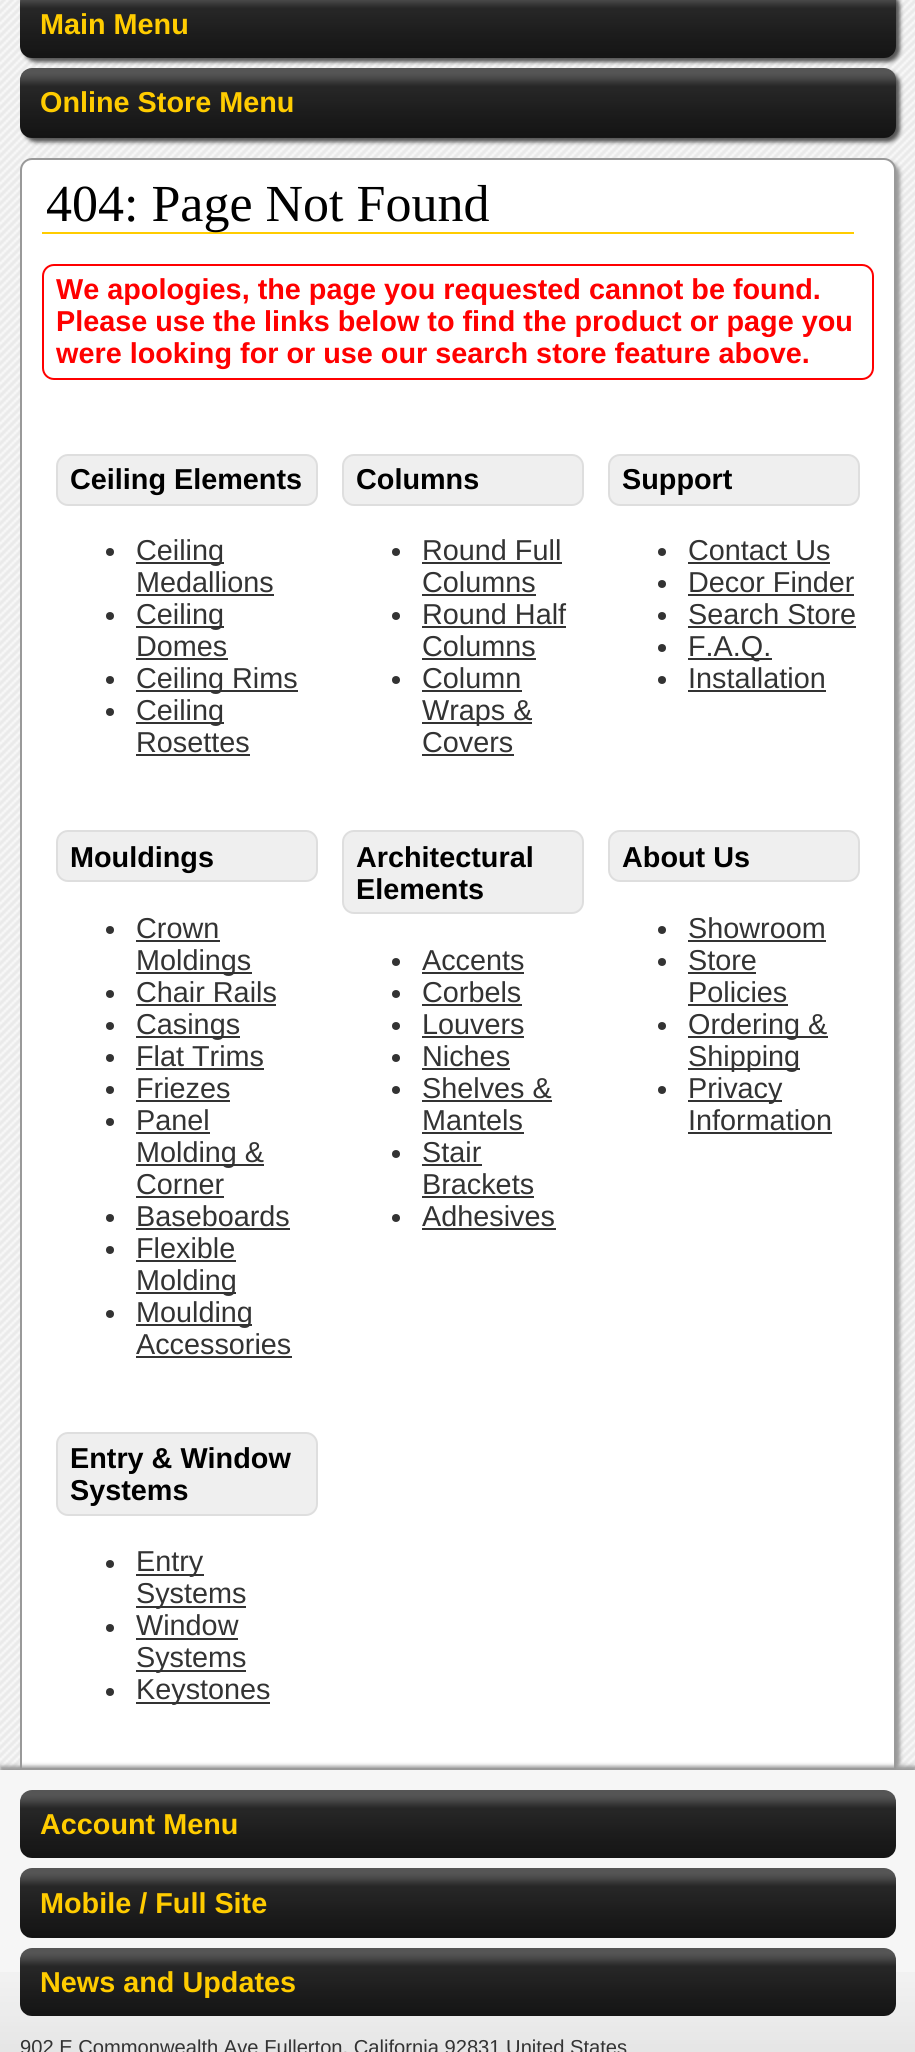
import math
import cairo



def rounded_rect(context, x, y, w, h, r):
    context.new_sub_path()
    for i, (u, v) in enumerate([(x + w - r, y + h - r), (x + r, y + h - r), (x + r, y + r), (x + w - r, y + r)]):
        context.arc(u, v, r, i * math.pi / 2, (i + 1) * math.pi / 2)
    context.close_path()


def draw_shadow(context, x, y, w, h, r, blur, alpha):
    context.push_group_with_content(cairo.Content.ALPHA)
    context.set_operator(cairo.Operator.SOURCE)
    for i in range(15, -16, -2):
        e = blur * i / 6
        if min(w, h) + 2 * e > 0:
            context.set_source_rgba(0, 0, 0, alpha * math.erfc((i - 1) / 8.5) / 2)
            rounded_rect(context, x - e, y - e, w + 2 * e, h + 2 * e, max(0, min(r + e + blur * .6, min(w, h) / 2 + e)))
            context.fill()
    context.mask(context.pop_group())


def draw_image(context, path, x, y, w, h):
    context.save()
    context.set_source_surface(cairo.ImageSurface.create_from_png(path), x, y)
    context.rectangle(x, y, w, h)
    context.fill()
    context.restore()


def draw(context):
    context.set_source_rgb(1, 1, 1)
    context.paint()
    draw_image(context, "images/1.png", 0, 0, 915, 1770)
    context.set_source_rgb(85 / 255, 85 / 255, 85 / 255)
    draw_shadow(context, 24, -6, 876, 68, 12, 2, 1)
    draw_image(context, "images/2.png", 20, 0, 876, 58)
    draw_shadow(context, 24, 72, 876, 70, 12, 2, 1)
    draw_image(context, "images/3.png", 20, 68, 876, 70)
    context.set_source_rgb(153 / 255, 153 / 255, 153 / 255)
    draw_shadow(context, 24, 162, 876, 1612, 12, 2, 1)
    context.set_source_rgb(1, 1, 1)
    context.new_path()
    context.move_to(32, 159)
    context.line_to(884, 159)
    context.curve_to(890, 159, 895, 164, 895, 170)
    context.line_to(895, 1769)
    context.line_to(21, 1769)
    context.line_to(21, 170)
    context.curve_to(21, 164, 26, 159, 32, 159)
    context.close_path()
    context.fill_preserve()
    context.set_source_rgb(153 / 255, 153 / 255, 153 / 255)
    context.stroke()
    context.set_source_rgb(1, 204 / 255, 0)
    context.rectangle(42, 232, 812, 2)
    context.fill()
    rounded_rect(context, 43, 265, 830, 114, 11)
    context.set_source_rgb(1, 0, 0)
    context.stroke()
    context.set_source_rgb(239 / 255, 239 / 255, 239 / 255)
    rounded_rect(context, 57, 455, 260, 50, 11)
    context.fill_preserve()
    context.set_source_rgb(222 / 255, 222 / 255, 222 / 255)
    context.stroke()
    context.set_source_rgb(51 / 255, 51 / 255, 51 / 255)
    context.arc(110, 552, 4, 0, 2 * math.pi)
    context.fill()
    context.rectangle(136, 562, 88, 2)
    context.fill()
    context.rectangle(136, 594, 138, 2)
    context.fill()
    context.arc(110, 616, 4, 0, 2 * math.pi)
    context.fill()
    context.rectangle(136, 626, 88, 2)
    context.fill()
    context.rectangle(136, 658, 92, 2)
    context.fill()
    context.arc(110, 680, 4, 0, 2 * math.pi)
    context.fill()
    context.rectangle(136, 690, 162, 2)
    context.fill()
    context.arc(110, 712, 4, 0, 2 * math.pi)
    context.fill()
    context.rectangle(136, 722, 88, 2)
    context.fill()
    context.rectangle(136, 754, 114, 2)
    context.fill()
    context.set_source_rgb(239 / 255, 239 / 255, 239 / 255)
    rounded_rect(context, 343, 455, 240, 50, 11)
    context.fill_preserve()
    context.set_source_rgb(222 / 255, 222 / 255, 222 / 255)
    context.stroke()
    context.set_source_rgb(51 / 255, 51 / 255, 51 / 255)
    context.arc(396, 552, 4, 0, 2 * math.pi)
    context.fill()
    context.rectangle(422, 562, 140, 2)
    context.fill()
    context.rectangle(422, 594, 114, 2)
    context.fill()
    context.arc(396, 616, 4, 0, 2 * math.pi)
    context.fill()
    context.rectangle(422, 626, 144, 2)
    context.fill()
    context.rectangle(422, 658, 114, 2)
    context.fill()
    context.arc(396, 680, 4, 0, 2 * math.pi)
    context.fill()
    context.rectangle(422, 690, 100, 2)
    context.fill()
    context.rectangle(422, 722, 110, 2)
    context.fill()
    context.rectangle(422, 754, 92, 2)
    context.fill()
    context.set_source_rgb(239 / 255, 239 / 255, 239 / 255)
    rounded_rect(context, 609, 455, 250, 50, 11)
    context.fill_preserve()
    context.set_source_rgb(222 / 255, 222 / 255, 222 / 255)
    context.stroke()
    context.set_source_rgb(51 / 255, 51 / 255, 51 / 255)
    context.arc(662, 552, 4, 0, 2 * math.pi)
    context.fill()
    context.rectangle(688, 562, 142, 2)
    context.fill()
    context.arc(662, 584, 4, 0, 2 * math.pi)
    context.fill()
    context.rectangle(688, 594, 166, 2)
    context.fill()
    context.arc(662, 616, 4, 0, 2 * math.pi)
    context.fill()
    context.rectangle(688, 626, 168, 2)
    context.fill()
    context.arc(662, 648, 4, 0, 2 * math.pi)
    context.fill()
    context.rectangle(688, 658, 84, 2)
    context.fill()
    context.arc(662, 680, 4, 0, 2 * math.pi)
    context.fill()
    context.rectangle(688, 690, 138, 2)
    context.fill()
    context.set_source_rgb(239 / 255, 239 / 255, 239 / 255)
    rounded_rect(context, 57, 831, 260, 50, 11)
    context.fill_preserve()
    context.set_source_rgb(222 / 255, 222 / 255, 222 / 255)
    context.stroke()
    context.set_source_rgb(51 / 255, 51 / 255, 51 / 255)
    context.arc(110, 930, 4, 0, 2 * math.pi)
    context.fill()
    context.rectangle(136, 940, 84, 2)
    context.fill()
    context.rectangle(136, 972, 116, 2)
    context.fill()
    context.arc(110, 994, 4, 0, 2 * math.pi)
    context.fill()
    context.rectangle(136, 1004, 140, 2)
    context.fill()
    context.arc(110, 1026, 4, 0, 2 * math.pi)
    context.fill()
    context.rectangle(136, 1036, 104, 2)
    context.fill()
    context.arc(110, 1058, 4, 0, 2 * math.pi)
    context.fill()
    context.rectangle(136, 1068, 128, 2)
    context.fill()
    context.arc(110, 1090, 4, 0, 2 * math.pi)
    context.fill()
    context.rectangle(136, 1100, 94, 2)
    context.fill()
    context.arc(110, 1122, 4, 0, 2 * math.pi)
    context.fill()
    context.rectangle(136, 1132, 74, 2)
    context.fill()
    context.rectangle(136, 1164, 128, 2)
    context.fill()
    context.rectangle(136, 1196, 88, 2)
    context.fill()
    context.arc(110, 1218, 4, 0, 2 * math.pi)
    context.fill()
    context.rectangle(136, 1228, 154, 2)
    context.fill()
    context.arc(110, 1250, 4, 0, 2 * math.pi)
    context.fill()
    context.rectangle(136, 1260, 100, 2)
    context.fill()
    context.rectangle(136, 1292, 100, 2)
    context.fill()
    context.arc(110, 1314, 4, 0, 2 * math.pi)
    context.fill()
    context.rectangle(136, 1324, 116, 2)
    context.fill()
    context.rectangle(136, 1356, 156, 2)
    context.fill()
    context.set_source_rgb(239 / 255, 239 / 255, 239 / 255)
    rounded_rect(context, 343, 831, 240, 82, 11)
    context.fill_preserve()
    context.set_source_rgb(222 / 255, 222 / 255, 222 / 255)
    context.stroke()
    context.set_source_rgb(51 / 255, 51 / 255, 51 / 255)
    context.arc(396, 962, 4, 0, 2 * math.pi)
    context.fill()
    context.rectangle(422, 972, 102, 2)
    context.fill()
    context.arc(396, 994, 4, 0, 2 * math.pi)
    context.fill()
    context.rectangle(422, 1004, 100, 2)
    context.fill()
    context.arc(396, 1026, 4, 0, 2 * math.pi)
    context.fill()
    context.rectangle(422, 1036, 102, 2)
    context.fill()
    context.arc(396, 1058, 4, 0, 2 * math.pi)
    context.fill()
    context.rectangle(422, 1068, 88, 2)
    context.fill()
    context.arc(396, 1090, 4, 0, 2 * math.pi)
    context.fill()
    context.rectangle(422, 1100, 130, 2)
    context.fill()
    context.rectangle(422, 1132, 102, 2)
    context.fill()
    context.arc(396, 1154, 4, 0, 2 * math.pi)
    context.fill()
    context.rectangle(422, 1164, 60, 2)
    context.fill()
    context.rectangle(422, 1196, 112, 2)
    context.fill()
    context.arc(396, 1218, 4, 0, 2 * math.pi)
    context.fill()
    context.rectangle(422, 1228, 134, 2)
    context.fill()
    context.set_source_rgb(239 / 255, 239 / 255, 239 / 255)
    rounded_rect(context, 609, 831, 250, 50, 11)
    context.fill_preserve()
    context.set_source_rgb(222 / 255, 222 / 255, 222 / 255)
    context.stroke()
    context.set_source_rgb(51 / 255, 51 / 255, 51 / 255)
    context.arc(662, 930, 4, 0, 2 * math.pi)
    context.fill()
    context.rectangle(688, 940, 138, 2)
    context.fill()
    context.arc(662, 962, 4, 0, 2 * math.pi)
    context.fill()
    context.rectangle(688, 972, 68, 2)
    context.fill()
    context.rectangle(688, 1004, 100, 2)
    context.fill()
    context.arc(662, 1026, 4, 0, 2 * math.pi)
    context.fill()
    context.rectangle(688, 1036, 140, 2)
    context.fill()
    context.rectangle(688, 1068, 112, 2)
    context.fill()
    context.arc(662, 1090, 4, 0, 2 * math.pi)
    context.fill()
    context.rectangle(688, 1100, 94, 2)
    context.fill()
    context.rectangle(688, 1132, 144, 2)
    context.fill()
    context.set_source_rgb(239 / 255, 239 / 255, 239 / 255)
    rounded_rect(context, 57, 1433, 260, 82, 11)
    context.fill_preserve()
    context.set_source_rgb(222 / 255, 222 / 255, 222 / 255)
    context.stroke()
    context.set_source_rgb(51 / 255, 51 / 255, 51 / 255)
    context.arc(110, 1564, 4, 0, 2 * math.pi)
    context.fill()
    context.rectangle(136, 1574, 68, 2)
    context.fill()
    context.rectangle(136, 1606, 110, 2)
    context.fill()
    context.arc(110, 1628, 4, 0, 2 * math.pi)
    context.fill()
    context.rectangle(136, 1638, 102, 2)
    context.fill()
    context.rectangle(136, 1670, 110, 2)
    context.fill()
    context.arc(110, 1692, 4, 0, 2 * math.pi)
    context.fill()
    context.rectangle(136, 1702, 134, 2)
    context.fill()
    context.set_source_rgb(153 / 255, 153 / 255, 153 / 255)
    draw_shadow(context, 0, 1766, 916, 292, 0, 2, 1)
    context.set_source_rgb(246 / 255, 246 / 255, 246 / 255)
    context.rectangle(0, 1770, 915, 202)
    context.fill()
    draw_image(context, "images/4.png", 0, 1972, 915, 80)
    draw_image(context, "images/5.png", 20, 1790, 876, 68)
    draw_image(context, "images/6.png", 20, 1868, 876, 70)
    draw_image(context, "images/7.png", 20, 1948, 876, 68)
    context.select_font_face("Liberation Sans", cairo.FontSlant.NORMAL, cairo.FontWeight.BOLD)
    context.set_font_size(28.8)
    context.set_source_rgb(1, 204 / 255, 0)
    context.move_to(40, 34)
    context.show_text("Main Menu")
    context.move_to(40, 112)
    context.show_text("Online Store Menu")
    context.select_font_face("Liberation Serif")
    context.set_font_size(52)
    context.set_source_rgb(0, 0, 0)
    context.move_to(46, 221)
    context.show_text("404: Page Not Found")
    context.select_font_face("Liberation Sans", cairo.FontSlant.NORMAL, cairo.FontWeight.BOLD)
    context.set_font_size(28.8)
    context.set_source_rgb(1, 0, 0)
    context.move_to(56, 299)
    context.show_text("We apologies, the page you requested cannot be found.")
    context.move_to(56, 331)
    context.show_text("Please use the links below to find the product or page you")
    context.move_to(56, 363)
    context.show_text("were looking for or use our search store feature above.")
    context.set_source_rgb(0, 0, 0)
    context.move_to(70, 489)
    context.show_text("Ceiling Elements")
    context.select_font_face("Liberation Sans")
    context.set_source_rgb(51 / 255, 51 / 255, 51 / 255)
    context.move_to(136, 560)
    context.show_text("Ceiling")
    context.move_to(136, 592)
    context.show_text("Medallions")
    context.move_to(136, 624)
    context.show_text("Ceiling")
    context.move_to(136, 656)
    context.show_text("Domes")
    context.move_to(136, 688)
    context.show_text("Ceiling Rims")
    context.move_to(136, 720)
    context.show_text("Ceiling")
    context.move_to(136, 752)
    context.show_text("Rosettes")
    context.select_font_face("Liberation Sans", cairo.FontSlant.NORMAL, cairo.FontWeight.BOLD)
    context.set_source_rgb(0, 0, 0)
    context.move_to(356, 489)
    context.show_text("Columns")
    context.select_font_face("Liberation Sans")
    context.set_source_rgb(51 / 255, 51 / 255, 51 / 255)
    context.move_to(422, 560)
    context.show_text("Round Full")
    context.move_to(422, 592)
    context.show_text("Columns")
    context.move_to(422, 624)
    context.show_text("Round Half")
    context.move_to(422, 656)
    context.show_text("Columns")
    context.move_to(422, 688)
    context.show_text("Column")
    context.move_to(422, 720)
    context.show_text("Wraps &")
    context.move_to(422, 752)
    context.show_text("Covers")
    context.select_font_face("Liberation Sans", cairo.FontSlant.NORMAL, cairo.FontWeight.BOLD)
    context.set_source_rgb(0, 0, 0)
    context.move_to(622, 489)
    context.show_text("Support")
    context.select_font_face("Liberation Sans")
    context.set_source_rgb(51 / 255, 51 / 255, 51 / 255)
    context.move_to(688, 560)
    context.show_text("Contact Us")
    context.move_to(688, 592)
    context.show_text("Decor Finder")
    context.move_to(688, 624)
    context.show_text("Search Store")
    context.move_to(688, 656)
    context.show_text("F.A.Q.")
    context.move_to(688, 688)
    context.show_text("Installation")
    context.select_font_face("Liberation Sans", cairo.FontSlant.NORMAL, cairo.FontWeight.BOLD)
    context.set_source_rgb(0, 0, 0)
    context.move_to(70, 867)
    context.show_text("Mouldings")
    context.select_font_face("Liberation Sans")
    context.set_source_rgb(51 / 255, 51 / 255, 51 / 255)
    context.move_to(136, 938)
    context.show_text("Crown")
    context.move_to(136, 970)
    context.show_text("Moldings")
    context.move_to(136, 1002)
    context.show_text("Chair Rails")
    context.move_to(136, 1034)
    context.show_text("Casings")
    context.move_to(136, 1066)
    context.show_text("Flat Trims")
    context.move_to(136, 1098)
    context.show_text("Friezes")
    context.move_to(136, 1130)
    context.show_text("Panel")
    context.move_to(136, 1162)
    context.show_text("Molding &")
    context.move_to(136, 1194)
    context.show_text("Corner")
    context.move_to(136, 1226)
    context.show_text("Baseboards")
    context.move_to(136, 1258)
    context.show_text("Flexible")
    context.move_to(136, 1290)
    context.show_text("Molding")
    context.move_to(136, 1322)
    context.show_text("Moulding")
    context.move_to(136, 1354)
    context.show_text("Accessories")
    context.select_font_face("Liberation Sans", cairo.FontSlant.NORMAL, cairo.FontWeight.BOLD)
    context.set_source_rgb(0, 0, 0)
    context.move_to(356, 867)
    context.show_text("Architectural")
    context.move_to(356, 899)
    context.show_text("Elements")
    context.select_font_face("Liberation Sans")
    context.set_source_rgb(51 / 255, 51 / 255, 51 / 255)
    context.move_to(422, 970)
    context.show_text("Accents")
    context.move_to(422, 1002)
    context.show_text("Corbels")
    context.move_to(422, 1034)
    context.show_text("Louvers")
    context.move_to(422, 1066)
    context.show_text("Niches")
    context.move_to(422, 1098)
    context.show_text("Shelves &")
    context.move_to(422, 1130)
    context.show_text("Mantels")
    context.move_to(422, 1162)
    context.show_text("Stair")
    context.move_to(422, 1194)
    context.show_text("Brackets")
    context.move_to(422, 1226)
    context.show_text("Adhesives")
    context.select_font_face("Liberation Sans", cairo.FontSlant.NORMAL, cairo.FontWeight.BOLD)
    context.set_source_rgb(0, 0, 0)
    context.move_to(622, 867)
    context.show_text("About Us")
    context.select_font_face("Liberation Sans")
    context.set_source_rgb(51 / 255, 51 / 255, 51 / 255)
    context.move_to(688, 938)
    context.show_text("Showroom")
    context.move_to(688, 970)
    context.show_text("Store")
    context.move_to(688, 1002)
    context.show_text("Policies")
    context.move_to(688, 1034)
    context.show_text("Ordering &")
    context.move_to(688, 1066)
    context.show_text("Shipping")
    context.move_to(688, 1098)
    context.show_text("Privacy")
    context.move_to(688, 1130)
    context.show_text("Information")
    context.select_font_face("Liberation Sans", cairo.FontSlant.NORMAL, cairo.FontWeight.BOLD)
    context.set_source_rgb(0, 0, 0)
    context.move_to(70, 1468)
    context.show_text("Entry & Window")
    context.move_to(70, 1500)
    context.show_text("Systems")
    context.select_font_face("Liberation Sans")
    context.set_source_rgb(51 / 255, 51 / 255, 51 / 255)
    context.move_to(136, 1571)
    context.show_text("Entry")
    context.move_to(136, 1603)
    context.show_text("Systems")
    context.move_to(136, 1635)
    context.show_text("Window")
    context.move_to(136, 1667)
    context.show_text("Systems")
    context.move_to(136, 1699)
    context.show_text("Keystones")
    context.select_font_face("Liberation Sans", cairo.FontSlant.NORMAL, cairo.FontWeight.BOLD)
    context.set_source_rgb(1, 204 / 255, 0)
    context.move_to(40, 1834)
    context.show_text("Account Menu")
    context.move_to(40, 1913)
    context.show_text("Mobile / Full Site")
    context.move_to(40, 1992)
    context.show_text("News and Updates")
    context.select_font_face("Liberation Sans")
    context.set_font_size(20.15)
    context.set_source_rgb(51 / 255, 51 / 255, 51 / 255)
    context.move_to(20, 2054)
    context.show_text("902 E Commonwealth Ave Fullerton, California 92831 United States")


surface = cairo.ImageSurface(cairo.Format.RGB24, 915, 2052)
context = cairo.Context(surface)
options = cairo.FontOptions()
options.set_hint_metrics(cairo.HintMetrics.OFF)
options.set_hint_style(cairo.HintStyle.NONE)
context.set_font_options(options)
context.set_miter_limit(4)
draw(context)
surface.write_to_png("out.png")
